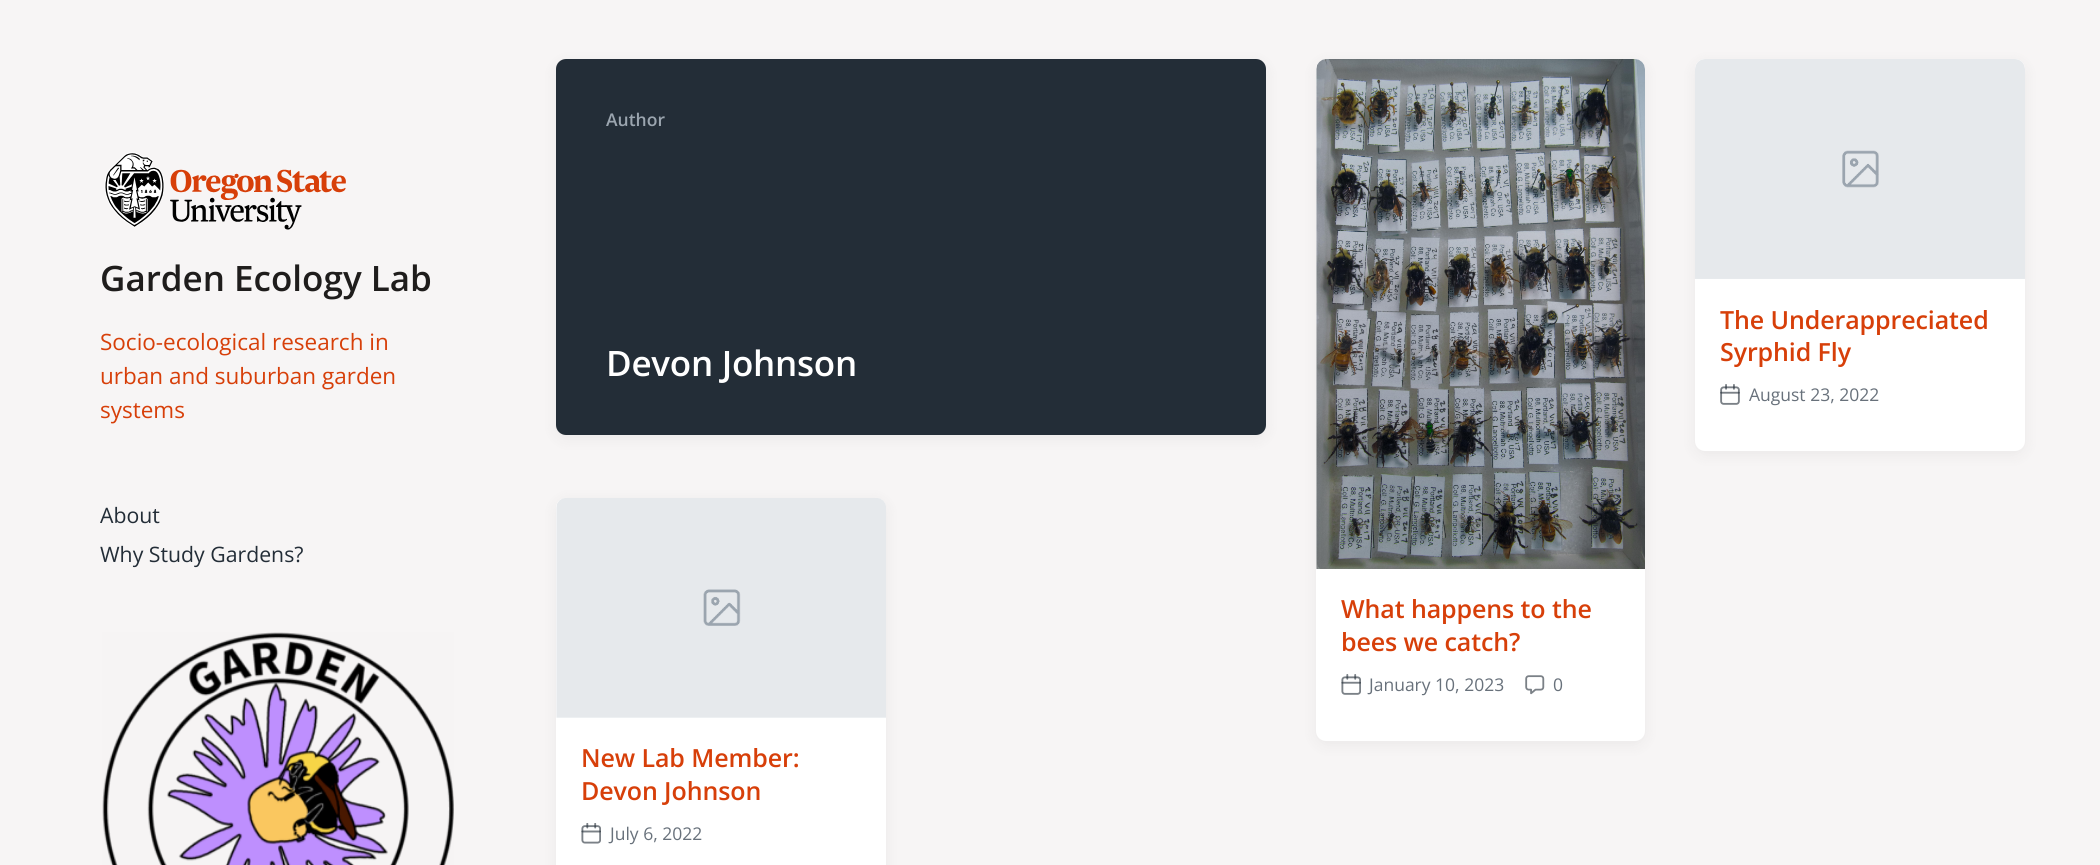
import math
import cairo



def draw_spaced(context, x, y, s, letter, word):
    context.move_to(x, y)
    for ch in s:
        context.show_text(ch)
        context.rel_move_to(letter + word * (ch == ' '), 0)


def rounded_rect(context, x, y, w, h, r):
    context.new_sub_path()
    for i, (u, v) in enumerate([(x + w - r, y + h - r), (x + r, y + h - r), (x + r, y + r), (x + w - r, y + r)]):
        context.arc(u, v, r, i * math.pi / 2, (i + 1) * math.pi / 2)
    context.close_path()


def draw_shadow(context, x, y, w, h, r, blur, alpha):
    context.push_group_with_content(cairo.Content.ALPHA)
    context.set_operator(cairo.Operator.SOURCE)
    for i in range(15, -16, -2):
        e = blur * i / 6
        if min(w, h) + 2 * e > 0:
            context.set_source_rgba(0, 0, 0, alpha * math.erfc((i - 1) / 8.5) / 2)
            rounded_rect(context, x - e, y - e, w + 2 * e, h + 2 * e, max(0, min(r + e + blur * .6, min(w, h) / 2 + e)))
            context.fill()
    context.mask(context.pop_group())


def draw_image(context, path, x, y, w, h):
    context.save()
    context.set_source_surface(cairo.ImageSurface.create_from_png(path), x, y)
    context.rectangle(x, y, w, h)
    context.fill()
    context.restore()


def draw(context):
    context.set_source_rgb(247 / 255, 245 / 255, 245 / 255)
    context.paint()
    draw_image(context, "images/1.png", 104, 152, 242, 78)
    draw_image(context, "images/2.png", 102, 632, 352, 233)
    context.set_source_rgb(5 / 255, 10 / 255, 15 / 255)
    draw_shadow(context, 556, 63, 710, 376, 10, 7.5, 0.05)
    context.set_source_rgb(35 / 255, 45 / 255, 55 / 255)
    rounded_rect(context, 556, 59, 710, 376, 10)
    context.fill()
    context.set_source_rgb(5 / 255, 10 / 255, 15 / 255)
    draw_shadow(context, 1695, 63, 330, 392, 10, 7.5, 0.05)
    context.set_source_rgb(1, 1, 1)
    rounded_rect(context, 1695, 59, 330, 392, 10)
    context.fill()
    draw_image(context, "images/3.png", 1695, 59, 330, 220)
    draw_image(context, "images/4.png", 1720, 384, 20, 21)
    context.set_source_rgb(5 / 255, 10 / 255, 15 / 255)
    draw_shadow(context, 1316, 63, 329, 682, 10, 7.5, 0.05)
    context.set_source_rgb(1, 1, 1)
    rounded_rect(context, 1316, 59, 329, 682, 10)
    context.fill()
    draw_image(context, "images/5.png", 1316, 59, 329, 510)
    draw_image(context, "images/6.png", 1341, 674, 20, 21)
    draw_image(context, "images/7.png", 1525, 675, 20, 20)
    context.set_source_rgb(5 / 255, 10 / 255, 15 / 255)
    draw_shadow(context, 556, 501, 330, 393, 10, 7.5, 0.05)
    context.set_source_rgb(1, 1, 1)
    rounded_rect(context, 556, 498, 330, 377, 10)
    context.fill()
    draw_image(context, "images/8.png", 556, 498, 330, 220)
    draw_image(context, "images/9.png", 581, 823, 20, 21)
    context.select_font_face("Open Sans SemiBold")
    context.set_font_size(35)
    context.set_source_rgb(31 / 255, 29 / 255, 28 / 255)
    context.move_to(100, 291)
    context.show_text("Garden Ecology Lab")
    context.select_font_face("Open Sans")
    context.set_font_size(22.5)
    context.set_source_rgb(215 / 255, 63 / 255, 9 / 255)
    context.move_to(100, 350)
    context.show_text("Socio-ecological research in")
    context.move_to(100, 384)
    context.show_text("urban and suburban garden")
    context.move_to(100, 418)
    context.show_text("systems")
    context.set_font_size(21.25)
    context.set_source_rgb(35 / 255, 45 / 255, 55 / 255)
    context.move_to(100, 523)
    context.show_text("About")
    context.move_to(100, 562)
    context.show_text("Why Study Gardens?")
    context.select_font_face("Open Sans SemiBold")
    context.set_font_size(17.5)
    context.set_source_rgb(155 / 255, 165 / 255, 175 / 255)
    context.move_to(606, 126)
    context.show_text("Author")
    context.set_font_size(35)
    context.set_source_rgb(1, 1, 1)
    draw_spaced(context, 606, 376, "Devon Johnson", -0.25, 0)
    context.set_font_size(25)
    context.set_source_rgb(215 / 255, 63 / 255, 9 / 255)
    draw_spaced(context, 1720, 329, "The Underappreciated", -0.1, 0)
    draw_spaced(context, 1720, 361, "Syrphid Fly", -0.1, 0)
    context.select_font_face("Open Sans")
    context.set_font_size(17.5)
    context.set_source_rgb(104 / 255, 113 / 255, 123 / 255)
    context.move_to(1749, 401)
    context.show_text("August 23, 2022")
    context.select_font_face("Open Sans SemiBold")
    context.set_font_size(25)
    context.set_source_rgb(215 / 255, 63 / 255, 9 / 255)
    draw_spaced(context, 1341, 618, "What happens to the", -0.1, 0)
    draw_spaced(context, 1341, 651, "bees we catch?", -0.1, 0)
    context.select_font_face("Open Sans")
    context.set_font_size(17.5)
    context.set_source_rgb(104 / 255, 113 / 255, 123 / 255)
    context.move_to(1369, 691)
    context.show_text("January 10, 2023")
    context.move_to(1553, 691)
    context.show_text("0")
    context.select_font_face("Open Sans SemiBold")
    context.set_font_size(25)
    context.set_source_rgb(215 / 255, 63 / 255, 9 / 255)
    draw_spaced(context, 581, 767, "New Lab Member:", -0.1, 0)
    draw_spaced(context, 581, 800, "Devon Johnson", -0.1, 0)
    context.select_font_face("Open Sans")
    context.set_font_size(17.5)
    context.set_source_rgb(104 / 255, 113 / 255, 123 / 255)
    context.move_to(610, 840)
    context.show_text("July 6, 2022")


surface = cairo.ImageSurface(cairo.Format.RGB24, 2100, 865)
context = cairo.Context(surface)
options = cairo.FontOptions()
options.set_hint_metrics(cairo.HintMetrics.OFF)
options.set_hint_style(cairo.HintStyle.NONE)
context.set_font_options(options)
context.set_miter_limit(4)
draw(context)
surface.write_to_png("out.png")
